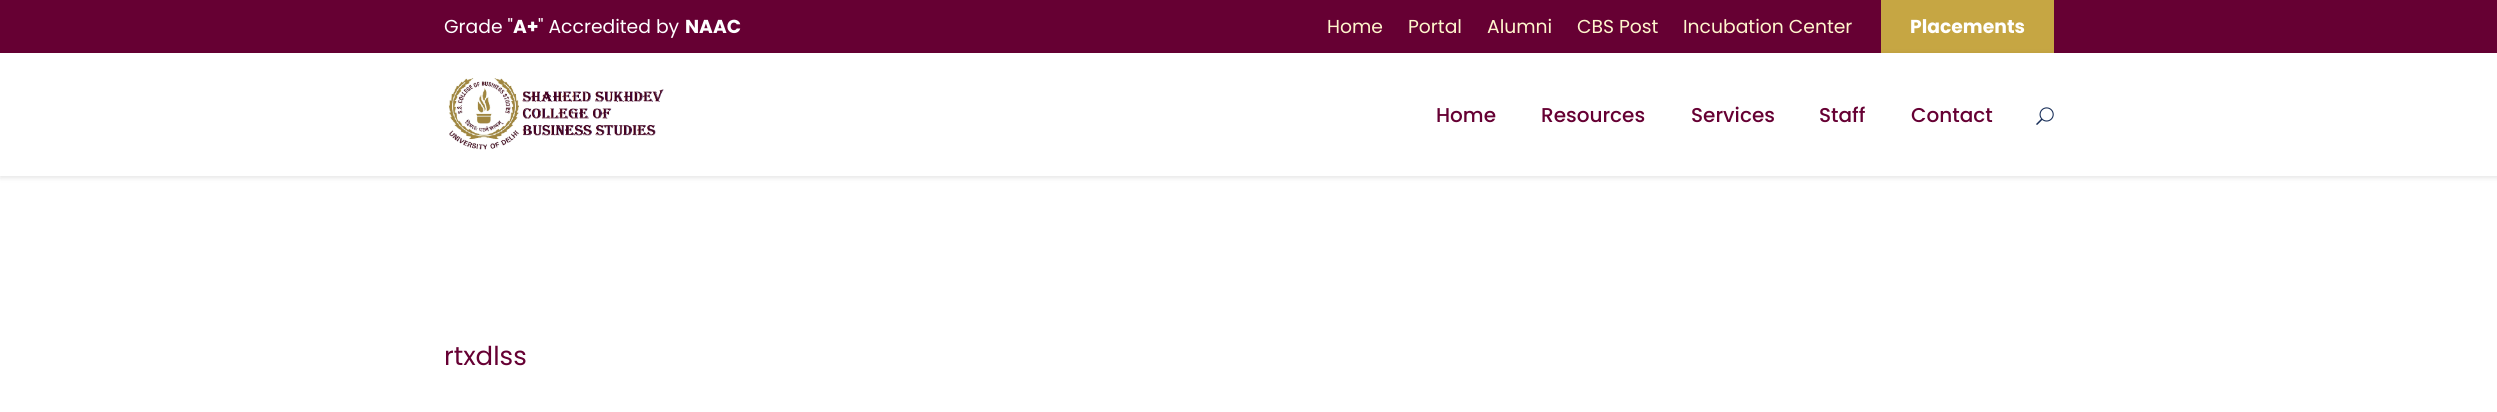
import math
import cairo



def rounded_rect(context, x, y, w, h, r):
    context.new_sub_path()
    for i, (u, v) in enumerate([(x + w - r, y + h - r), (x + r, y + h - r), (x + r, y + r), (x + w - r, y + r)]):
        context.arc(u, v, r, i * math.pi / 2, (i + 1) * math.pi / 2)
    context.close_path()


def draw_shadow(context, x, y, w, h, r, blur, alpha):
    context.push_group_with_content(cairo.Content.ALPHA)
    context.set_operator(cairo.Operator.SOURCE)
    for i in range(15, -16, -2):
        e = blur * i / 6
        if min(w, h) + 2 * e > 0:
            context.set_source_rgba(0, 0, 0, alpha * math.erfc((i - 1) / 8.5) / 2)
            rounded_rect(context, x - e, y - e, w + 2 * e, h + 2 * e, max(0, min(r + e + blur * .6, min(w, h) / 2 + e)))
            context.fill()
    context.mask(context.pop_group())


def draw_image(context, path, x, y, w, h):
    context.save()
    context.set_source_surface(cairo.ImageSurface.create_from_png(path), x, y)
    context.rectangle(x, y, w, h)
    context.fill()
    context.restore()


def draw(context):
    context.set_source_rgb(1, 1, 1)
    context.paint()
    context.set_source_rgb(102 / 255, 0, 51 / 255)
    context.rectangle(0, 0, 2497, 53)
    context.fill()
    context.set_source_rgb(198 / 255, 166 / 255, 67 / 255)
    context.rectangle(1881, 0, 173, 53)
    context.fill()
    context.set_source_rgb(0, 0, 0)
    draw_shadow(context, 0, 54, 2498, 124, 0, 2.5, 0.1)
    context.set_source_rgb(1, 1, 1)
    context.rectangle(0, 53, 2497, 123)
    context.fill()
    draw_image(context, "images/1.png", 448, 78, 216, 72)
    draw_image(context, "images/2.png", 2036, 107, 18, 18)
    context.select_font_face("Poppins")
    context.set_font_size(18.75)
    context.move_to(444, 33)
    context.show_text("Grade \"")
    context.select_font_face("Poppins", cairo.FontSlant.NORMAL, cairo.FontWeight.BOLD)
    context.move_to(513, 33)
    context.show_text("A+")
    context.select_font_face("Poppins")
    context.move_to(538, 33)
    context.show_text("\" Accredited by")
    context.select_font_face("Poppins", cairo.FontSlant.NORMAL, cairo.FontWeight.BOLD)
    context.move_to(685, 33)
    context.show_text("NAAC")
    context.select_font_face("Poppins")
    context.set_source_rgb(1, 245 / 255, 204 / 255)
    context.move_to(1327, 33)
    context.show_text("Home")
    context.move_to(1408, 33)
    context.show_text("Portal")
    context.move_to(1487, 33)
    context.show_text("Alumni")
    context.move_to(1577, 33)
    context.show_text("CBS Post")
    context.move_to(1683, 33)
    context.show_text("Incubation Center")
    context.select_font_face("Poppins", cairo.FontSlant.NORMAL, cairo.FontWeight.BOLD)
    context.set_source_rgb(1, 1, 1)
    context.move_to(1910, 33)
    context.show_text("Placements")
    context.select_font_face("Poppins Medium")
    context.set_font_size(20)
    context.set_source_rgb(102 / 255, 0, 51 / 255)
    context.move_to(1436, 122)
    context.show_text("Home")
    context.move_to(1541, 122)
    context.show_text("Resources")
    context.move_to(1691, 122)
    context.show_text("Services")
    context.move_to(1819, 122)
    context.show_text("Staff")
    context.move_to(1911, 122)
    context.show_text("Contact")
    context.select_font_face("Poppins")
    context.set_font_size(26)
    context.move_to(444, 365)
    context.show_text("rtxdlss")


surface = cairo.ImageSurface(cairo.Format.RGB24, 2497, 412)
context = cairo.Context(surface)
options = cairo.FontOptions()
options.set_hint_metrics(cairo.HintMetrics.OFF)
options.set_hint_style(cairo.HintStyle.NONE)
context.set_font_options(options)
context.set_miter_limit(4)
draw(context)
surface.write_to_png("out.png")
